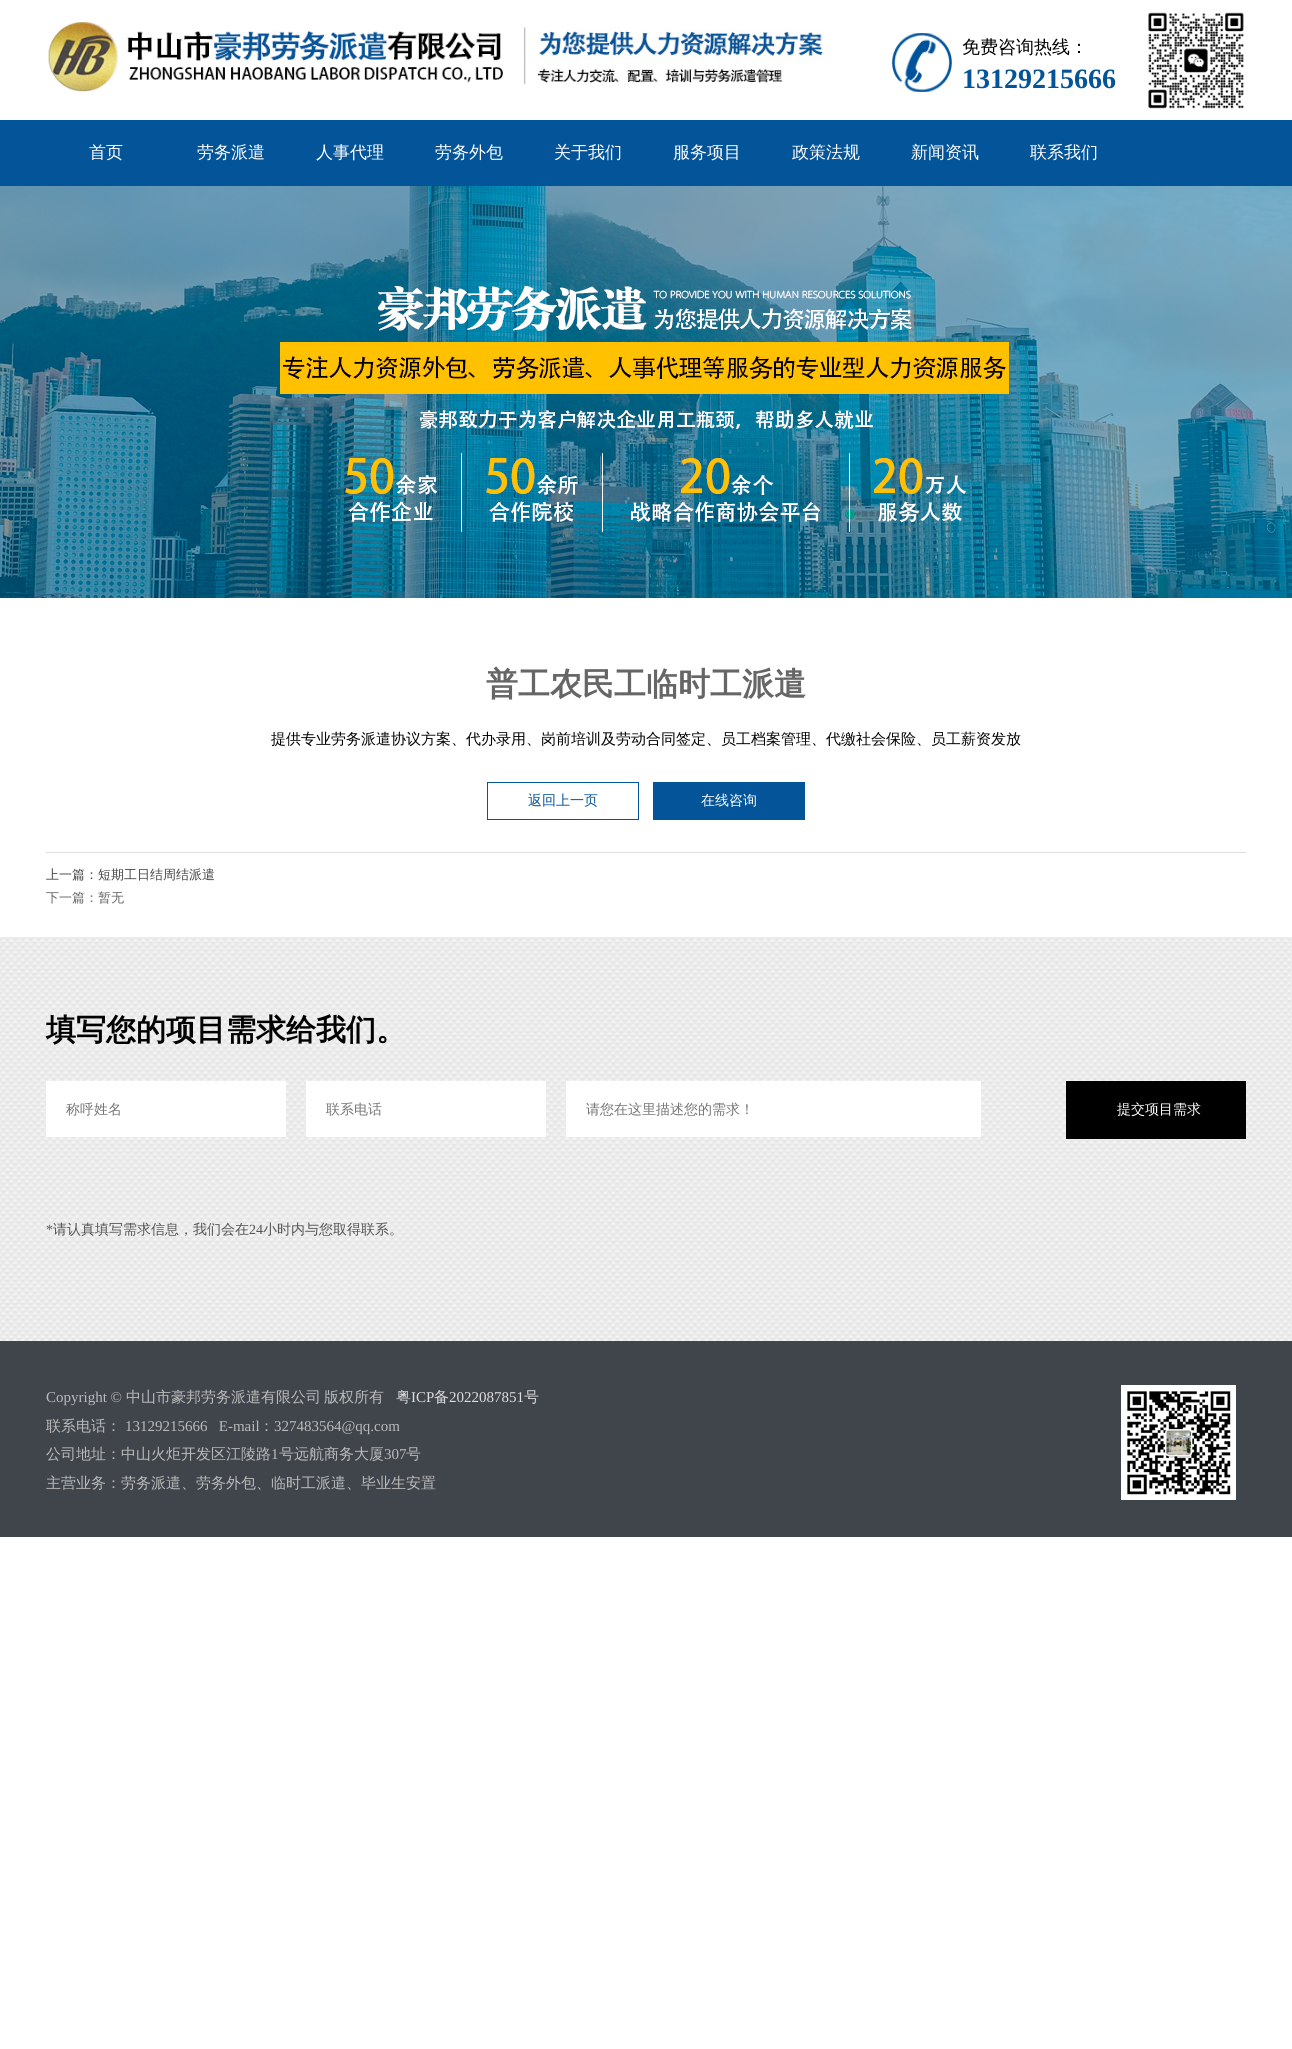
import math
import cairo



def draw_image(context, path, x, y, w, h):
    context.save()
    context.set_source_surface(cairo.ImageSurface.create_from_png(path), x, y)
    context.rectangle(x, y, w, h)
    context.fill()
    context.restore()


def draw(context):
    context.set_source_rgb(1, 1, 1)
    context.paint()
    draw_image(context, "images/1.png", 48, 22, 455, 70)
    draw_image(context, "images/2.png", 524, 27, 299, 57)
    draw_image(context, "images/3.png", 892, 33, 60, 59)
    draw_image(context, "images/4.png", 1148, 12, 96, 97)
    context.set_source_rgb(4 / 255, 84 / 255, 153 / 255)
    context.rectangle(0, 120, 1292, 66)
    context.fill()
    draw_image(context, "images/5.png", 0, 186, 1292, 412)
    context.rectangle(487.5, 782.5, 151, 37)
    context.set_line_width(1)
    context.stroke()
    context.rectangle(653, 782, 152, 38)
    context.fill()
    context.set_source_rgb(221 / 255, 221 / 255, 221 / 255)
    context.rectangle(46, 852, 1200, 1)
    context.fill()
    draw_image(context, "images/6.png", 0, 937, 1292, 404)
    context.set_source_rgb(1, 1, 1)
    context.rectangle(46, 1081, 240, 56)
    context.fill()
    context.rectangle(306, 1081, 240, 56)
    context.fill()
    context.rectangle(566, 1081, 415, 56)
    context.fill()
    context.set_source_rgb(0, 0, 0)
    context.rectangle(1066, 1081, 180, 58)
    context.fill()
    context.set_source_rgb(64 / 255, 68 / 255, 75 / 255)
    context.rectangle(0, 1341, 1292, 196)
    context.fill()
    draw_image(context, "images/7.png", 1121, 1385, 115, 115)
    context.select_font_face("WenQuanYi Zen Hei Medium")
    context.set_font_size(18)
    context.set_source_rgb(0, 0, 0)
    context.move_to(962, 53)
    context.show_text("免费咨询热线：")
    context.select_font_face("Liberation Serif", cairo.FontSlant.NORMAL, cairo.FontWeight.BOLD)
    context.set_font_size(28)
    context.set_source_rgb(4 / 255, 84 / 255, 153 / 255)
    context.move_to(962, 88)
    context.show_text("13129215666")
    context.select_font_face("WenQuanYi Zen Hei Medium")
    context.set_font_size(17)
    context.set_source_rgb(1, 1, 1)
    context.move_to(89, 158)
    context.show_text("首页")
    context.move_to(197, 158)
    context.show_text("劳务派遣")
    context.move_to(316, 158)
    context.show_text("人事代理")
    context.move_to(435, 158)
    context.show_text("劳务外包")
    context.move_to(554, 158)
    context.show_text("关于我们")
    context.move_to(673, 158)
    context.show_text("服务项目")
    context.move_to(792, 158)
    context.show_text("政策法规")
    context.move_to(911, 158)
    context.show_text("新闻资讯")
    context.move_to(1030, 158)
    context.show_text("联系我们")
    context.select_font_face("WenQuanYi Zen Hei", cairo.FontSlant.NORMAL, cairo.FontWeight.BOLD)
    context.set_font_size(32)
    context.set_source_rgb(102 / 255, 102 / 255, 102 / 255)
    context.move_to(486, 695)
    context.show_text("普工农民工临时工派遣")
    context.select_font_face("WenQuanYi Zen Hei Medium")
    context.set_font_size(15)
    context.set_source_rgb(0, 0, 0)
    context.move_to(271, 744)
    context.show_text("提供专业劳务派遣协议方案、代办录用、岗前培训及劳动合同签定、员工档案管理、代缴社会保险、员工薪资发放")
    context.set_font_size(14)
    context.set_source_rgb(4 / 255, 84 / 255, 153 / 255)
    context.move_to(528, 805)
    context.show_text("返回上一页")
    context.set_source_rgb(1, 1, 1)
    context.move_to(701, 805)
    context.show_text("在线咨询")
    context.set_font_size(13)
    context.set_source_rgb(68 / 255, 68 / 255, 68 / 255)
    context.move_to(46, 879)
    context.show_text("上一篇：短期工日结周结派遣")
    context.set_source_rgb(102 / 255, 102 / 255, 102 / 255)
    context.move_to(46, 902)
    context.show_text("下一篇：暂无")
    context.select_font_face("WenQuanYi Zen Hei", cairo.FontSlant.NORMAL, cairo.FontWeight.BOLD)
    context.set_font_size(30)
    context.set_source_rgb(0, 0, 0)
    context.move_to(46, 1040)
    context.show_text("填写您的项目需求给我们。")
    context.select_font_face("WenQuanYi Zen Hei Medium")
    context.set_font_size(14)
    context.set_source_rgb(117 / 255, 117 / 255, 117 / 255)
    context.move_to(66, 1114)
    context.show_text("称呼姓名")
    context.move_to(326, 1114)
    context.show_text("联系电话")
    context.move_to(586, 1114)
    context.show_text("请您在这里描述您的需求！")
    context.set_source_rgb(1, 1, 1)
    context.move_to(1117, 1114)
    context.show_text("提交项目需求")
    context.select_font_face("Liberation Serif")
    context.set_source_rgb(83 / 255, 83 / 255, 83 / 255)
    context.move_to(46, 1234)
    context.show_text("*")
    context.select_font_face("WenQuanYi Zen Hei Medium")
    context.move_to(53, 1234)
    context.show_text("请认真填写需求信息，我们会在")
    context.select_font_face("Liberation Serif")
    context.move_to(249, 1234)
    context.show_text("24")
    context.select_font_face("WenQuanYi Zen Hei Medium")
    context.move_to(263, 1234)
    context.show_text("小时内与您取得联系。")
    context.select_font_face("Liberation Serif")
    context.set_font_size(15)
    context.set_source_rgb(187 / 255, 187 / 255, 187 / 255)
    context.move_to(46, 1402)
    context.show_text("Copyright ©")
    context.select_font_face("WenQuanYi Zen Hei Medium")
    context.move_to(126, 1402)
    context.show_text("中山市豪邦劳务派遣有限公司")
    context.move_to(324, 1402)
    context.show_text("版权所有")
    context.set_source_rgb(221 / 255, 221 / 255, 221 / 255)
    context.move_to(396, 1402)
    context.show_text("粤")
    context.select_font_face("Liberation Serif")
    context.move_to(411, 1402)
    context.show_text("ICP")
    context.select_font_face("WenQuanYi Zen Hei Medium")
    context.move_to(434, 1402)
    context.show_text("备")
    context.select_font_face("Liberation Serif")
    context.move_to(449, 1402)
    context.show_text("2022087851")
    context.select_font_face("WenQuanYi Zen Hei Medium")
    context.move_to(524, 1402)
    context.show_text("号")
    context.set_source_rgb(187 / 255, 187 / 255, 187 / 255)
    context.move_to(46, 1431)
    context.show_text("联系电话：")
    context.select_font_face("Liberation Serif")
    context.move_to(125, 1431)
    context.show_text("13129215666   E-mail")
    context.select_font_face("WenQuanYi Zen Hei Medium")
    context.move_to(259, 1431)
    context.show_text("：")
    context.select_font_face("Liberation Serif")
    context.move_to(274, 1431)
    context.show_text("327483564@qq.com")
    context.select_font_face("WenQuanYi Zen Hei Medium")
    context.move_to(46, 1459)
    context.show_text("公司地址：中山火炬开发区江陵路")
    context.select_font_face("Liberation Serif")
    context.move_to(271, 1459)
    context.show_text("1")
    context.select_font_face("WenQuanYi Zen Hei Medium")
    context.move_to(279, 1459)
    context.show_text("号远航商务大厦")
    context.select_font_face("Liberation Serif")
    context.move_to(384, 1459)
    context.show_text("307")
    context.select_font_face("WenQuanYi Zen Hei Medium")
    context.move_to(406, 1459)
    context.show_text("号")
    context.move_to(46, 1488)
    context.show_text("主营业务：劳务派遣、劳务外包、临时工派遣、毕业生安置")


surface = cairo.ImageSurface(cairo.Format.RGB24, 1292, 2049)
context = cairo.Context(surface)
options = cairo.FontOptions()
options.set_hint_metrics(cairo.HintMetrics.OFF)
options.set_hint_style(cairo.HintStyle.NONE)
context.set_font_options(options)
context.set_miter_limit(4)
draw(context)
surface.write_to_png("out.png")
